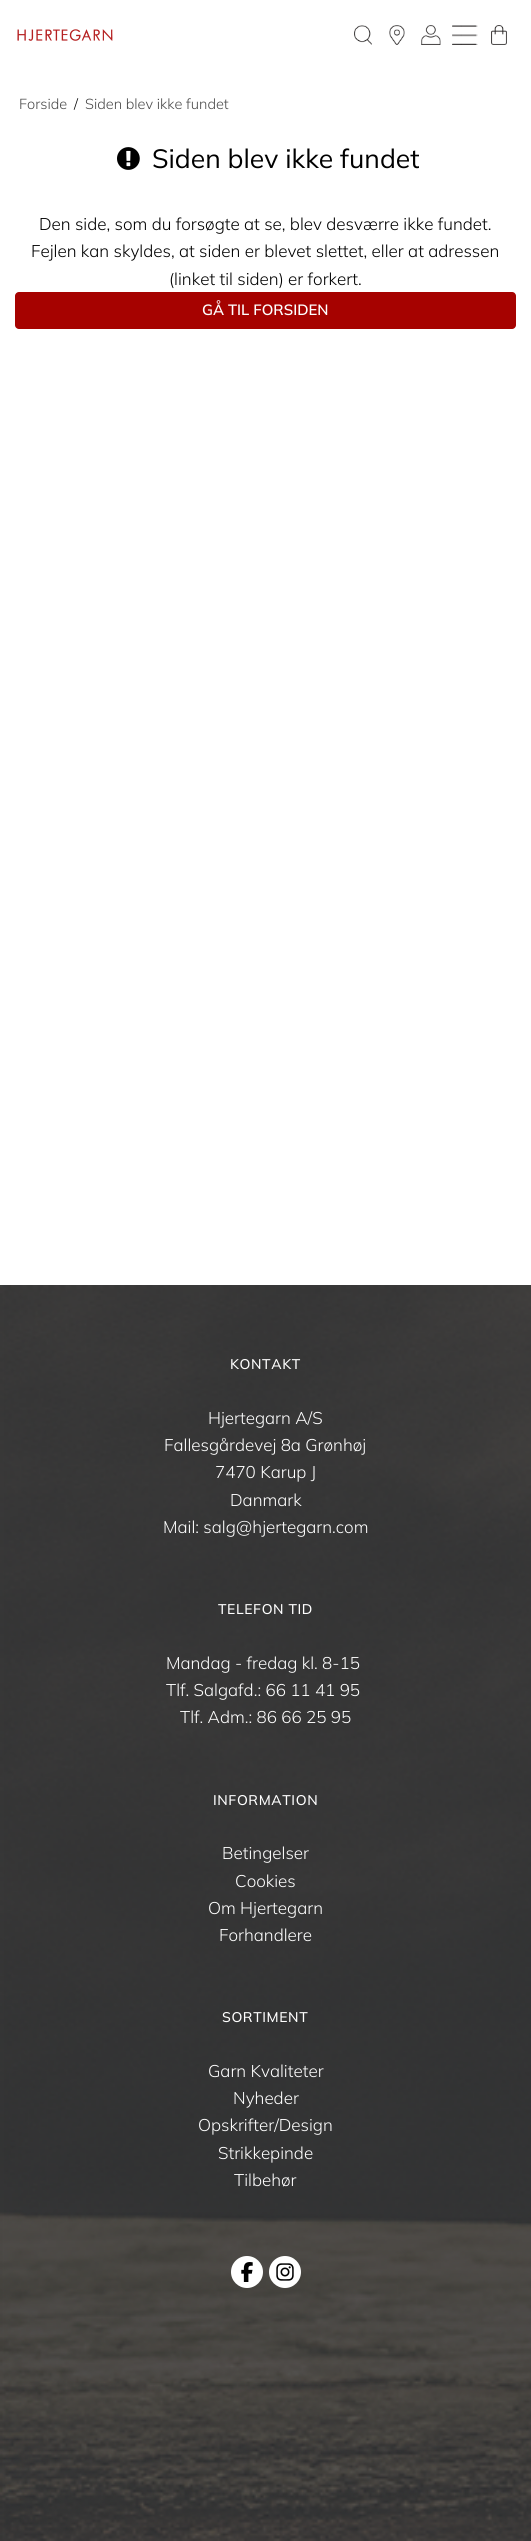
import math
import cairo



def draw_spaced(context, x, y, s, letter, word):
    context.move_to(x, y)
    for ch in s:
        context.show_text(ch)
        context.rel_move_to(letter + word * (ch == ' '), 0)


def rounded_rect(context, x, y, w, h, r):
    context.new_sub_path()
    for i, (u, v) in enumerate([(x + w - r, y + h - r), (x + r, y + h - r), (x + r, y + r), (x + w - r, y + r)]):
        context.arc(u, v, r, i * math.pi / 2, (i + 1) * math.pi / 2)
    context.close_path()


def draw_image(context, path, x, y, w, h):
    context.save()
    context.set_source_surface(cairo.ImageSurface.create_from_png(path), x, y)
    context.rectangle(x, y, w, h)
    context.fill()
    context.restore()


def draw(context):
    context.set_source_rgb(1, 1, 1)
    context.paint()
    draw_image(context, "images/1.png", 17, 29, 96, 12)
    draw_image(context, "images/2.png", 354, 25, 18, 20)
    draw_image(context, "images/3.png", 389, 25, 16, 20)
    draw_image(context, "images/4.png", 421, 25, 20, 20)
    draw_image(context, "images/5.png", 452, 25, 26, 20)
    draw_image(context, "images/6.png", 491, 25, 16, 20)
    draw_image(context, "images/7.png", 117, 147, 23, 23)
    context.set_source_rgb(166 / 255, 2 / 255, 0)
    rounded_rect(context, 15, 292, 501, 37, 4)
    context.fill()
    context.set_source_rgb(51 / 255, 51 / 255, 51 / 255)
    context.rectangle(0, 1285, 531, 1256)
    context.fill()
    draw_image(context, "images/8.png", 0, 1285, 531, 1256)
    context.set_source_rgb(1, 1, 1)
    context.arc(247, 2272, 16, 0, 2 * math.pi)
    context.fill()
    draw_image(context, "images/9.png", 241, 2262, 12, 20)
    context.arc(285, 2272, 16, 0, 2 * math.pi)
    context.fill()
    draw_image(context, "images/10.png", 276, 2263, 18, 18)
    context.select_font_face("Mulish Light")
    context.set_font_size(14.5)
    context.set_source_rgb(74 / 255, 74 / 255, 74 / 255)
    context.move_to(19, 109)
    context.show_text("Forside")
    context.set_source_rgb(0, 0, 0)
    context.move_to(74, 109)
    context.show_text("/")
    context.set_source_rgb(74 / 255, 74 / 255, 74 / 255)
    context.move_to(85, 109)
    context.show_text("Siden blev ikke fundet")
    context.select_font_face("Mulish")
    context.set_font_size(26.5)
    context.set_source_rgb(0, 0, 0)
    context.move_to(152, 168)
    context.show_text("Siden blev ikke fundet")
    context.select_font_face("Mulish Light")
    context.set_font_size(17)
    context.move_to(39, 230)
    context.show_text("Den side, som du forsøgte at se, blev desværre ikke fundet.")
    context.move_to(31, 257)
    context.show_text("Fejlen kan skyldes, at siden er blevet slettet, eller at adressen")
    context.move_to(169, 285)
    context.show_text("(linket til siden) er forkert.")
    context.select_font_face("Mulish SemiBold")
    context.set_font_size(14.9)
    context.set_source_rgb(1, 1, 1)
    context.move_to(202, 315)
    context.show_text("GÅ TIL FORSIDEN")
    context.select_font_face("Mulish Medium")
    context.set_font_size(14)
    draw_spaced(context, 230, 1369, "KONTAKT", 0.6, 0)
    context.select_font_face("Mulish Light")
    context.set_font_size(17)
    context.move_to(208, 1424)
    context.show_text("Hjertegarn A/S")
    context.move_to(164, 1451)
    context.show_text("Fallesgårdevej 8a Grønhøj")
    context.move_to(215, 1478)
    context.show_text("7470 Karup J")
    context.move_to(230, 1506)
    context.show_text("Danmark")
    context.move_to(163, 1533)
    context.show_text("Mail: salg@hjertegarn.com")
    context.select_font_face("Mulish Medium")
    context.set_font_size(14)
    draw_spaced(context, 218, 1614, "TELEFON TID", 0.6, 0)
    context.select_font_face("Mulish Light")
    context.set_font_size(17)
    context.move_to(166, 1669)
    context.show_text("Mandag - fredag kl. 8-15")
    context.move_to(166, 1696)
    context.show_text("Tlf. Salgafd.: 66 11 41 95")
    context.move_to(180, 1723)
    context.show_text("Tlf. Adm.: 86 66 25 95")
    context.select_font_face("Mulish Medium")
    context.set_font_size(14)
    draw_spaced(context, 213, 1805, "INFORMATION", 0.6, 0)
    context.select_font_face("Mulish Light")
    context.set_font_size(17)
    context.move_to(222, 1859)
    context.show_text("Betingelser")
    context.move_to(235, 1887)
    context.show_text("Cookies")
    context.move_to(208, 1914)
    context.show_text("Om Hjertegarn")
    context.move_to(219, 1941)
    context.show_text("Forhandlere")
    context.select_font_face("Mulish Medium")
    context.set_font_size(14)
    draw_spaced(context, 222, 2022, "SORTIMENT", 0.6, 0)
    context.select_font_face("Mulish Light")
    context.set_font_size(17)
    context.move_to(208, 2077)
    context.show_text("Garn Kvaliteter")
    context.move_to(233, 2104)
    context.show_text("Nyheder")
    context.move_to(198, 2131)
    context.show_text("Opskrifter/Design")
    context.move_to(218, 2159)
    context.show_text("Strikkepinde")
    context.move_to(234, 2186)
    context.show_text("Tilbehør")


surface = cairo.ImageSurface(cairo.Format.RGB24, 531, 2541)
context = cairo.Context(surface)
options = cairo.FontOptions()
options.set_hint_metrics(cairo.HintMetrics.OFF)
options.set_hint_style(cairo.HintStyle.NONE)
context.set_font_options(options)
context.set_miter_limit(4)
draw(context)
surface.write_to_png("out.png")
